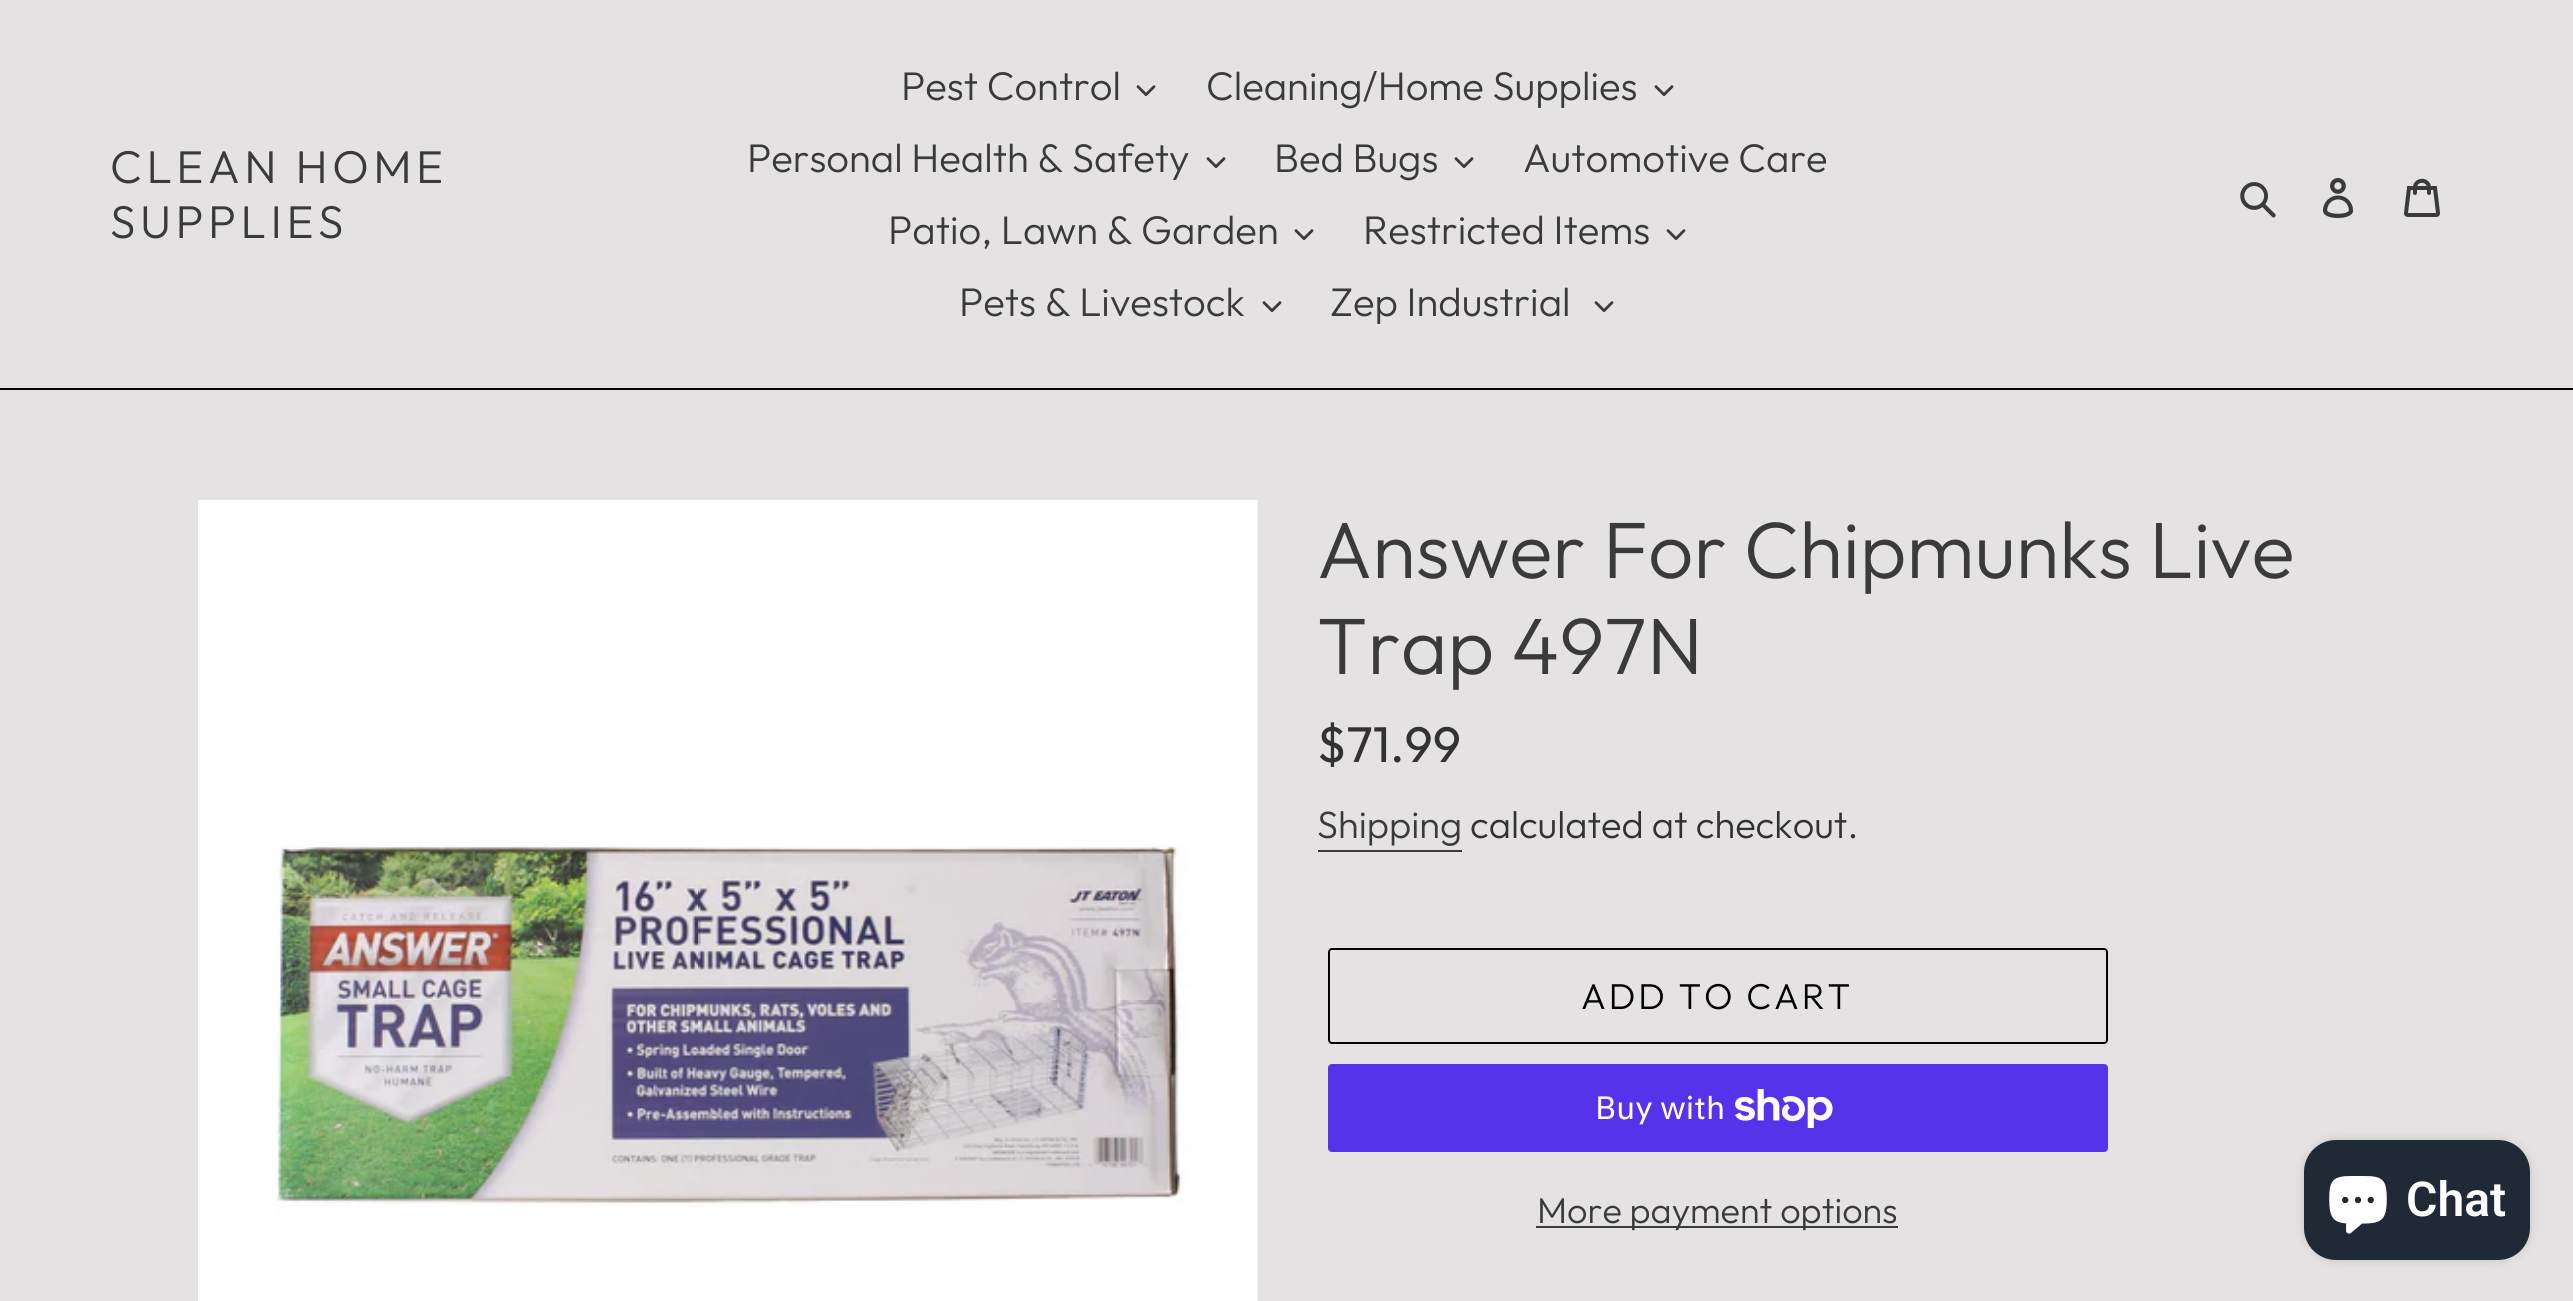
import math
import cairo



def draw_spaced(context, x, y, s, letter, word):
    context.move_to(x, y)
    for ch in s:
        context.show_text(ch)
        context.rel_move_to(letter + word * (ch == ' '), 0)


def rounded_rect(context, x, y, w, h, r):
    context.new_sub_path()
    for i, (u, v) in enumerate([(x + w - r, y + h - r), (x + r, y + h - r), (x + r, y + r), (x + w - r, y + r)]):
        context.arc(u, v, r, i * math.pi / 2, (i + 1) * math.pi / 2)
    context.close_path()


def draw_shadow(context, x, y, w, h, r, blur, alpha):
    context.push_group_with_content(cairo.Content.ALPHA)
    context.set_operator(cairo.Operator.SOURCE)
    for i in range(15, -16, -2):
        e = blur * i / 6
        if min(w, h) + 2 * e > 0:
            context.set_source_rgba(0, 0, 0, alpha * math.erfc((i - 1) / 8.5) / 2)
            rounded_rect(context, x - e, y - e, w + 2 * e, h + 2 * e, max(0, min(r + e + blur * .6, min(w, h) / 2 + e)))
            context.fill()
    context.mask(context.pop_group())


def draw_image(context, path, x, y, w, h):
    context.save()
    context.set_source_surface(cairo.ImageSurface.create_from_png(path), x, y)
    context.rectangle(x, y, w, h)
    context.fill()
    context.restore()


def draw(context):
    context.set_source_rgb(228 / 255, 226 / 255, 226 / 255)
    context.paint()
    context.set_source_rgb(0, 0, 0)
    context.rectangle(0, 388, 2573, 2)
    context.fill()
    draw_image(context, "images/1.png", 1136, 85, 20, 11)
    draw_image(context, "images/1.png", 1654, 85, 20, 11)
    draw_image(context, "images/1.png", 1206, 157, 20, 11)
    draw_image(context, "images/1.png", 1454, 157, 20, 11)
    draw_image(context, "images/1.png", 1294, 229, 20, 11)
    draw_image(context, "images/1.png", 1666, 229, 20, 11)
    draw_image(context, "images/1.png", 1262, 301, 20, 11)
    draw_image(context, "images/1.png", 1594, 301, 20, 11)
    draw_image(context, "images/2.png", 2240, 182, 36, 36)
    draw_image(context, "images/3.png", 2323, 178, 30, 40)
    draw_image(context, "images/4.png", 2404, 178, 36, 39)
    draw_image(context, "images/5.png", 198, 500, 1060, 801)
    context.set_source_rgb(58 / 255, 58 / 255, 58 / 255)
    context.rectangle(1318, 850, 144, 2)
    context.fill()
    rounded_rect(context, 1329, 949, 778, 94, 3)
    context.set_source_rgb(0, 0, 0)
    context.stroke()
    context.set_source_rgb(84 / 255, 51 / 255, 235 / 255)
    rounded_rect(context, 1328, 1064, 780, 88, 4)
    context.fill()
    draw_image(context, "images/6.png", 1735, 1089, 98, 39)
    context.set_source_rgb(58 / 255, 58 / 255, 58 / 255)
    context.rectangle(1536, 1226, 362, 2)
    context.fill()
    context.set_source_rgb(0, 0, 0)
    draw_shadow(context, 2304, 1140, 226, 120, 32, 5, 0.15)
    context.set_source_rgb(32 / 255, 42 / 255, 54 / 255)
    rounded_rect(context, 2304, 1140, 226, 120, 32)
    context.fill()
    draw_image(context, "images/7.png", 2329, 1176, 58, 58)
    context.select_font_face("Outfit Light")
    context.set_font_size(46)
    context.set_source_rgb(58 / 255, 58 / 255, 58 / 255)
    draw_spaced(context, 110, 183, "CLEAN HOME", 4.5, 0)
    draw_spaced(context, 110, 238, "SUPPLIES", 4.5, 0)
    context.set_font_size(40)
    context.move_to(901, 100)
    context.show_text("Pest Control")
    context.move_to(1206, 100)
    context.show_text("Cleaning/Home Supplies")
    context.move_to(747, 172)
    context.show_text("Personal Health & Safety")
    context.move_to(1274, 172)
    context.show_text("Bed Bugs")
    context.move_to(1523, 172)
    context.show_text("Automotive Care")
    context.move_to(888, 244)
    context.show_text("Patio, Lawn & Garden")
    context.move_to(1363, 244)
    context.show_text("Restricted Items")
    context.move_to(959, 316)
    context.show_text("Pets & Livestock")
    context.move_to(1330, 316)
    context.show_text("Zep Industrial")
    context.set_font_size(80)
    context.move_to(1317, 578)
    context.show_text("Answer For Chipmunks Live")
    context.move_to(1317, 674)
    context.show_text("Trap 497N")
    context.select_font_face("Outfit")
    context.set_font_size(50)
    context.set_source_rgb(51 / 255, 50 / 255, 50 / 255)
    context.move_to(1317, 762)
    context.show_text("$71.99")
    context.select_font_face("Outfit Light")
    context.set_font_size(38)
    context.set_source_rgb(58 / 255, 58 / 255, 58 / 255)
    context.move_to(1317, 838)
    context.show_text("Shipping")
    context.set_source_rgb(51 / 255, 50 / 255, 50 / 255)
    context.move_to(1470, 838)
    context.show_text("calculated at checkout.")
    context.set_font_size(36)
    context.set_source_rgb(0, 0, 0)
    draw_spaced(context, 1581, 1009, "ADD TO CART", 2.9, 0)
    context.select_font_face("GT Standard")
    context.set_font_size(32)
    context.set_source_rgb(1, 1, 1)
    context.move_to(1595, 1119)
    context.show_text("Buy with")
    context.select_font_face("Outfit Light")
    context.set_font_size(36)
    context.set_source_rgb(58 / 255, 58 / 255, 58 / 255)
    context.move_to(1537, 1223)
    context.show_text("More payment options")
    context.select_font_face("Roboto SemiBold")
    context.set_font_size(48)
    context.set_source_rgb(1, 1, 1)
    context.move_to(2406, 1216)
    context.show_text("Chat")


surface = cairo.ImageSurface(cairo.Format.RGB24, 2573, 1301)
context = cairo.Context(surface)
options = cairo.FontOptions()
options.set_hint_metrics(cairo.HintMetrics.OFF)
options.set_hint_style(cairo.HintStyle.NONE)
context.set_font_options(options)
context.set_miter_limit(4)
draw(context)
surface.write_to_png("out.png")
